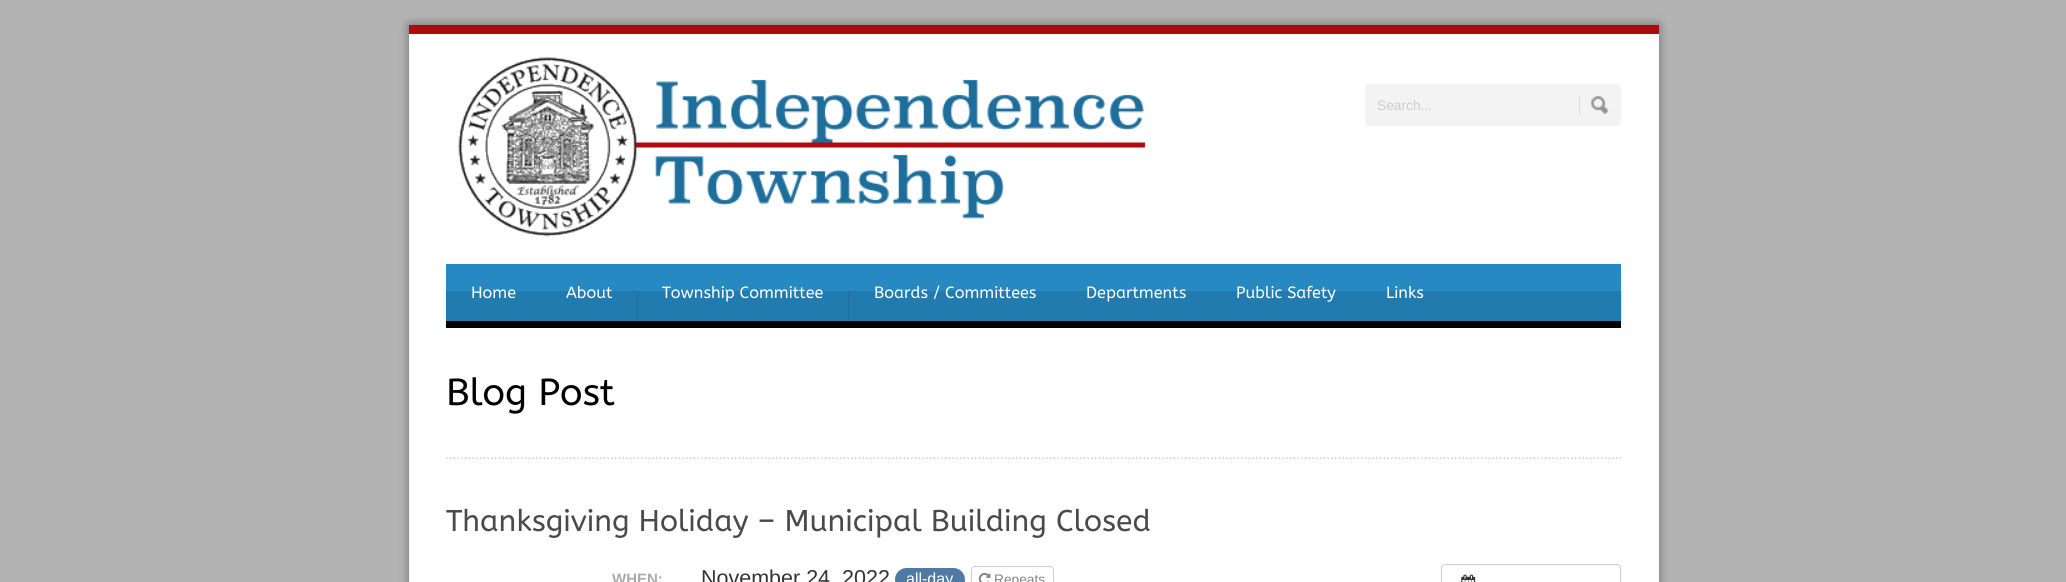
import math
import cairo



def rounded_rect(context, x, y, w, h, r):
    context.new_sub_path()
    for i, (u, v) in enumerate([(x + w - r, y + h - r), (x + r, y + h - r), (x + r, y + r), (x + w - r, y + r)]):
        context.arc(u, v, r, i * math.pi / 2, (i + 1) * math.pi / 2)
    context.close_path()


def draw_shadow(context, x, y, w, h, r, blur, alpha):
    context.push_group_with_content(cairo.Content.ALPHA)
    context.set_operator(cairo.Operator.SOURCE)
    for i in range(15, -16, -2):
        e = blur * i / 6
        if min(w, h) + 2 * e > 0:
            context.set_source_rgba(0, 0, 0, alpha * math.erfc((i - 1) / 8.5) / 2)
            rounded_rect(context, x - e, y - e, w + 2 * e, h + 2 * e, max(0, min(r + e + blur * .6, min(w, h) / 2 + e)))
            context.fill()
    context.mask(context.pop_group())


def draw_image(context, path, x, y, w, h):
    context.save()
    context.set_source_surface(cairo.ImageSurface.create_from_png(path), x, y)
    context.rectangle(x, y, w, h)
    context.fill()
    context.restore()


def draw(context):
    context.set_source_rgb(179 / 255, 179 / 255, 179 / 255)
    context.paint()
    context.set_source_rgb(0, 0, 0)
    draw_shadow(context, 409, 25, 1250, 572, 0, 5, 0.4)
    context.set_source_rgb(176 / 255, 10 / 255, 15 / 255)
    context.rectangle(409, 25, 1250, 9)
    context.fill()
    context.set_source_rgb(1, 1, 1)
    context.rectangle(409, 34, 1250, 548)
    context.fill()
    context.set_source_rgb(230 / 255, 230 / 255, 230 / 255)
    context.rectangle(1621, 291, 1, 30)
    context.fill()
    draw_image(context, "images/1.png", 458, 57, 688, 180)
    context.set_source_rgb(243 / 255, 243 / 255, 243 / 255)
    rounded_rect(context, 1365, 84, 256, 42, 4)
    context.fill()
    draw_image(context, "images/2.png", 1591, 96, 18, 18)
    context.set_source_rgb(219 / 255, 219 / 255, 219 / 255)
    context.rectangle(1579, 96, 1, 18)
    context.fill()
    context.set_source_rgb(38 / 255, 137 / 255, 194 / 255)
    context.rectangle(1449, 264, 172, 27)
    context.fill()
    context.set_source_rgb(34 / 255, 123 / 255, 175 / 255)
    context.rectangle(1449, 291, 172, 30)
    context.fill()
    context.set_source_rgb(38 / 255, 137 / 255, 194 / 255)
    context.rectangle(446, 264, 1003, 27)
    context.fill()
    context.set_source_rgb(34 / 255, 123 / 255, 175 / 255)
    context.rectangle(446, 291, 191, 30)
    context.fill()
    context.set_source_rgb(31 / 255, 111 / 255, 158 / 255)
    context.rectangle(637, 291, 1, 30)
    context.fill()
    context.set_source_rgb(34 / 255, 123 / 255, 175 / 255)
    context.rectangle(638, 291, 210, 30)
    context.fill()
    context.set_source_rgb(31 / 255, 111 / 255, 158 / 255)
    context.rectangle(848, 291, 1, 30)
    context.fill()
    context.set_source_rgb(34 / 255, 123 / 255, 175 / 255)
    context.rectangle(849, 291, 600, 30)
    context.fill()
    draw_image(context, "images/3.png", 446, 457, 1175, 2)
    context.set_source_rgb(0, 0, 0)
    context.rectangle(446, 321, 1175, 7)
    context.fill()
    context.set_source_rgb(80 / 255, 122 / 255, 163 / 255)
    rounded_rect(context, 895, 568, 70, 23, 11.5)
    context.fill()
    rounded_rect(context, 971.5, 566.5, 82, 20, 3.5)
    context.set_source_rgb(204 / 255, 204 / 255, 204 / 255)
    context.set_line_width(1)
    context.stroke()
    draw_image(context, "images/4.png", 978, 573, 13, 9)
    rounded_rect(context, 1441.5, 564.5, 179, 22, 3.5)
    context.stroke()
    draw_image(context, "images/5.png", 1461, 574, 15, 8)
    context.select_font_face("Liberation Sans")
    context.set_font_size(13.75)
    context.move_to(1377, 110)
    context.show_text("Search...")
    context.select_font_face("ABeeZee")
    context.set_font_size(16.25)
    context.set_source_rgb(1, 1, 1)
    context.move_to(471, 298)
    context.show_text("Home")
    context.move_to(566, 298)
    context.show_text("About")
    context.move_to(662, 298)
    context.show_text("Township Committee")
    context.move_to(874, 298)
    context.show_text("Boards / Committees")
    context.move_to(1086, 298)
    context.show_text("Departments")
    context.move_to(1236, 298)
    context.show_text("Public Safety")
    context.move_to(1386, 298)
    context.show_text("Links")
    context.set_font_size(37.5)
    context.set_source_rgb(0, 0, 0)
    context.move_to(446, 405)
    context.show_text("Blog Post")
    context.set_font_size(30)
    context.set_source_rgb(74 / 255, 74 / 255, 74 / 255)
    context.move_to(446, 531)
    context.show_text("Thanksgiving Holiday – Municipal Building Closed")
    context.select_font_face("Liberation Sans", cairo.FontSlant.NORMAL, cairo.FontWeight.BOLD)
    context.set_font_size(15)
    context.set_source_rgb(170 / 255, 170 / 255, 170 / 255)
    context.move_to(612, 584)
    context.show_text("WHEN:")
    context.select_font_face("Liberation Sans")
    context.set_font_size(21.5)
    context.set_source_rgb(51 / 255, 51 / 255, 51 / 255)
    context.move_to(701, 585)
    context.show_text("November 24, 2022")
    context.set_font_size(16)
    context.set_source_rgb(1, 1, 1)
    context.move_to(906, 584)
    context.show_text("all-day")
    context.set_font_size(13.75)
    context.set_source_rgb(133 / 255, 133 / 255, 133 / 255)
    context.move_to(994, 584)
    context.show_text("Repeats")


surface = cairo.ImageSurface(cairo.Format.RGB24, 2066, 582)
context = cairo.Context(surface)
options = cairo.FontOptions()
options.set_hint_metrics(cairo.HintMetrics.OFF)
options.set_hint_style(cairo.HintStyle.NONE)
context.set_font_options(options)
context.set_miter_limit(4)
draw(context)
surface.write_to_png("out.png")
